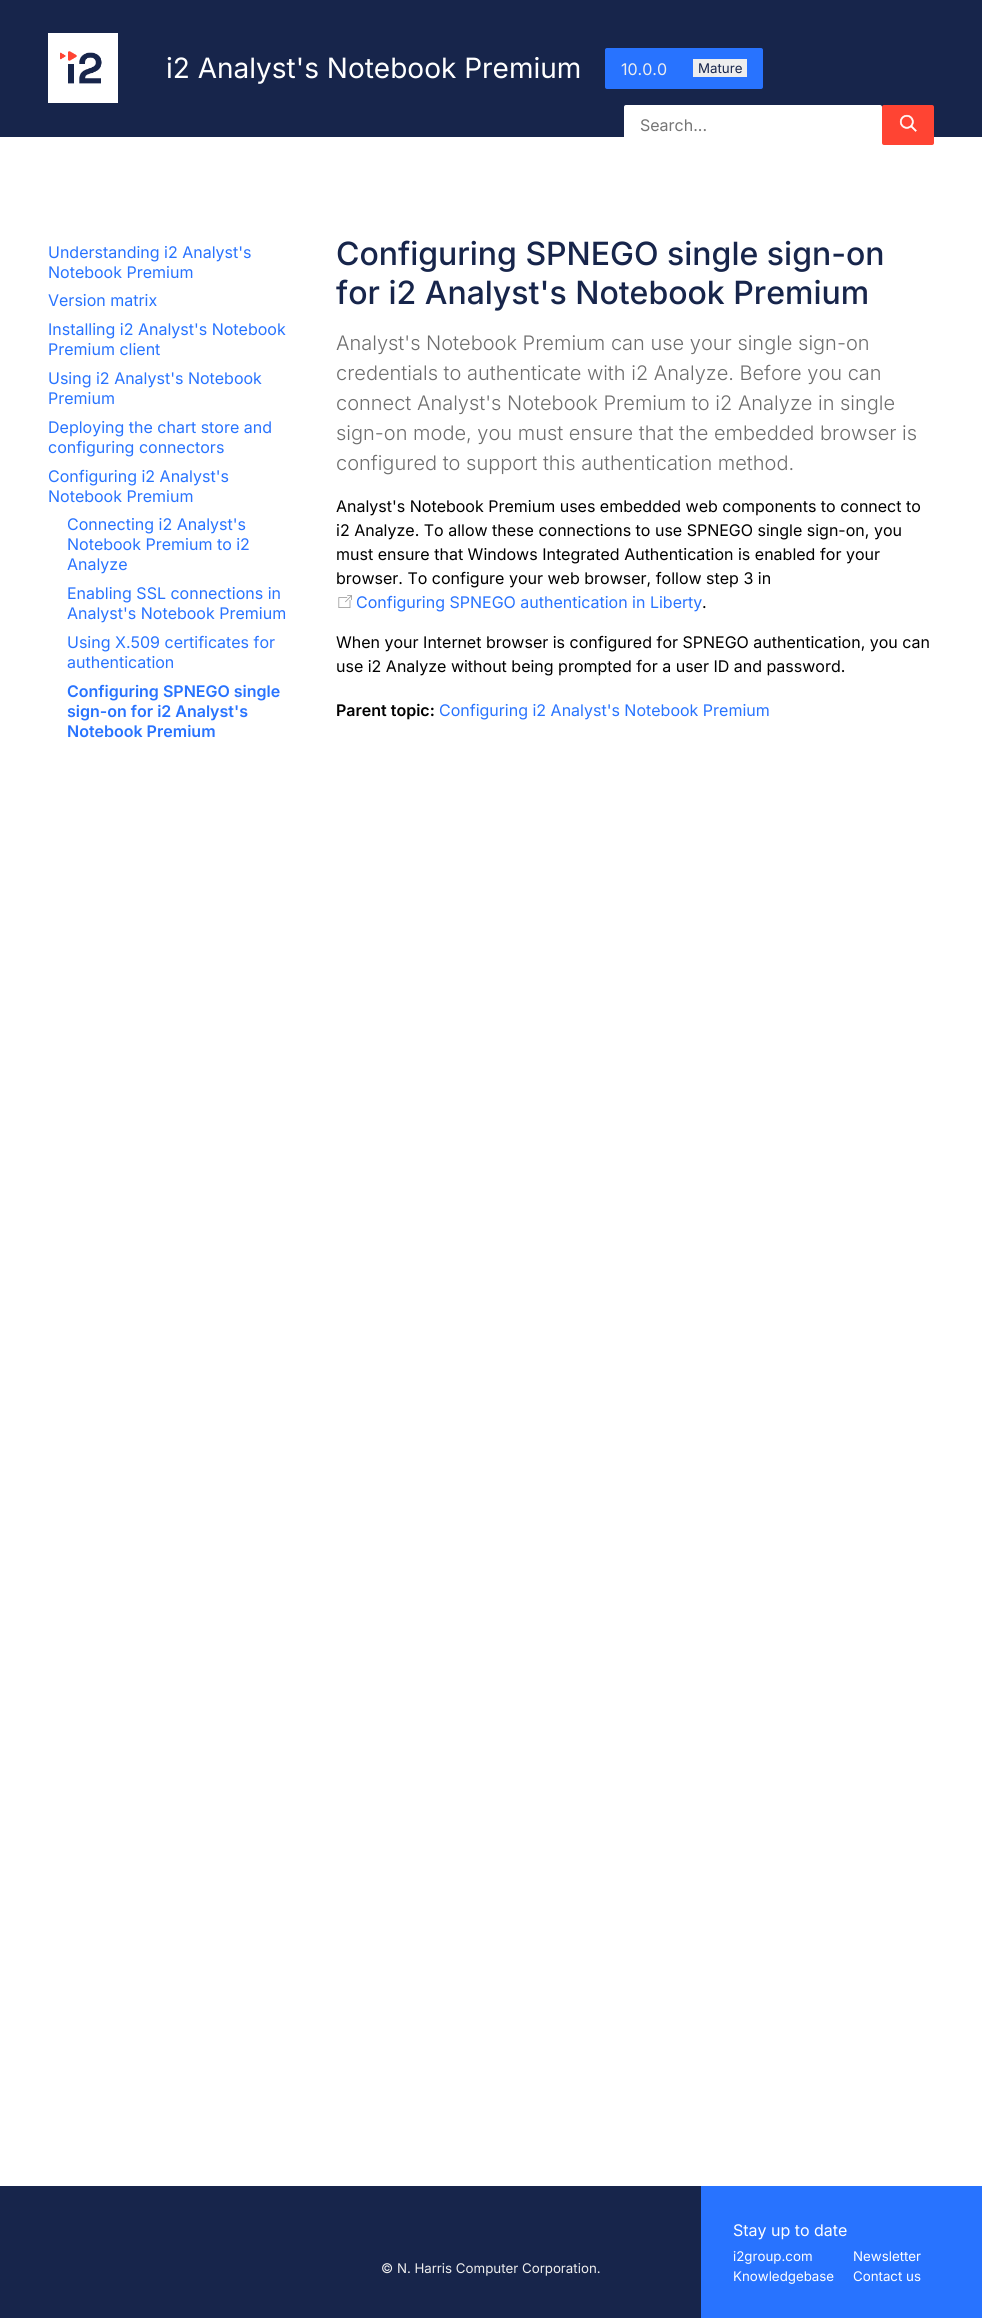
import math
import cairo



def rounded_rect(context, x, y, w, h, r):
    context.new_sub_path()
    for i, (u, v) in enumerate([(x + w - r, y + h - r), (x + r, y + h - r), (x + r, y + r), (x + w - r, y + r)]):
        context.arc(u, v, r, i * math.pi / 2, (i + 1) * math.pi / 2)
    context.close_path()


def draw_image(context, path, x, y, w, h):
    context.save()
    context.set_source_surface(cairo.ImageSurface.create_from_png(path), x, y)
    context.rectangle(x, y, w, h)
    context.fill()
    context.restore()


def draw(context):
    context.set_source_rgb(1, 1, 1)
    context.paint()
    context.set_source_rgb(23 / 255, 37 / 255, 75 / 255)
    context.rectangle(0, 0, 982, 137)
    context.fill()
    draw_image(context, "images/1.png", 48, 33, 70, 70)
    context.set_source_rgb(40 / 255, 115 / 255, 1)
    rounded_rect(context, 605, 48, 158, 41, 2)
    context.fill()
    context.set_source_rgb(238 / 255, 238 / 255, 238 / 255)
    context.rectangle(693, 59, 54, 18)
    context.fill()
    context.set_source_rgb(1, 1, 1)
    rounded_rect(context, 624, 105, 258, 40, 2)
    context.fill()
    context.set_source_rgb(1, 68 / 255, 51 / 255)
    rounded_rect(context, 882, 105, 52, 40, 2)
    context.fill()
    draw_image(context, "images/2.png", 899, 114, 18, 18)
    draw_image(context, "images/3.png", 338, 595, 14, 13)
    context.set_source_rgb(23 / 255, 37 / 255, 75 / 255)
    context.rectangle(0, 2186, 701, 132)
    context.fill()
    context.set_source_rgb(40 / 255, 115 / 255, 1)
    context.rectangle(701, 2186, 281, 132)
    context.fill()
    context.select_font_face("Inter")
    context.set_font_size(28)
    context.set_source_rgb(1, 1, 1)
    context.move_to(166, 78)
    context.show_text("i2 Analyst's Notebook Premium")
    context.set_font_size(16)
    context.set_source_rgb(238 / 255, 238 / 255, 238 / 255)
    context.move_to(621, 75)
    context.show_text("10.0.0")
    context.set_font_size(13.3)
    context.set_source_rgb(23 / 255, 37 / 255, 75 / 255)
    context.move_to(698, 73)
    context.show_text("Mature")
    context.set_font_size(16)
    context.set_source_rgb(117 / 255, 117 / 255, 117 / 255)
    context.move_to(640, 131)
    context.show_text("Search...")
    context.set_source_rgb(40 / 255, 115 / 255, 1)
    context.move_to(48, 258)
    context.show_text("Understanding i2 Analyst's")
    context.move_to(48, 278)
    context.show_text("Notebook Premium")
    context.move_to(48, 306)
    context.show_text("Version matrix")
    context.move_to(48, 335)
    context.show_text("Installing i2 Analyst's Notebook")
    context.move_to(48, 355)
    context.show_text("Premium client")
    context.move_to(48, 384)
    context.show_text("Using i2 Analyst's Notebook")
    context.move_to(48, 404)
    context.show_text("Premium")
    context.move_to(48, 433)
    context.show_text("Deploying the chart store and")
    context.move_to(48, 453)
    context.show_text("configuring connectors")
    context.move_to(48, 482)
    context.show_text("Configuring i2 Analyst's")
    context.move_to(48, 502)
    context.show_text("Notebook Premium")
    context.move_to(67, 530)
    context.show_text("Connecting i2 Analyst's")
    context.move_to(67, 550)
    context.show_text("Notebook Premium to i2")
    context.move_to(67, 570)
    context.show_text("Analyze")
    context.move_to(67, 599)
    context.show_text("Enabling SSL connections in")
    context.move_to(67, 619)
    context.show_text("Analyst's Notebook Premium")
    context.move_to(67, 648)
    context.show_text("Using X.509 certificates for")
    context.move_to(67, 668)
    context.show_text("authentication")
    context.select_font_face("Inter SemiBold")
    context.move_to(67, 697)
    context.show_text("Configuring SPNEGO single")
    context.move_to(67, 717)
    context.show_text("sign-on for i2 Analyst's")
    context.move_to(67, 737)
    context.show_text("Notebook Premium")
    context.select_font_face("Inter Medium")
    context.set_font_size(32)
    context.set_source_rgb(23 / 255, 37 / 255, 75 / 255)
    context.move_to(336, 265)
    context.show_text("Configuring SPNEGO single sign-on")
    context.move_to(336, 304)
    context.show_text("for i2 Analyst's Notebook Premium")
    context.select_font_face("Inter Light")
    context.set_font_size(20)
    context.set_source_rgb(110 / 255, 110 / 255, 110 / 255)
    context.move_to(336, 350)
    context.show_text("Analyst's Notebook Premium can use your single sign-on")
    context.move_to(336, 380)
    context.show_text("credentials to authenticate with i2 Analyze. Before you can")
    context.move_to(336, 410)
    context.show_text("connect Analyst's Notebook Premium to i2 Analyze in single")
    context.move_to(336, 440)
    context.show_text("sign-on mode, you must ensure that the embedded browser is")
    context.move_to(336, 470)
    context.show_text("configured to support this authentication method.")
    context.select_font_face("Inter")
    context.set_font_size(16)
    context.set_source_rgb(0, 0, 0)
    context.move_to(336, 512)
    context.show_text("Analyst's Notebook Premium uses embedded web components to connect to")
    context.move_to(336, 536)
    context.show_text("i2 Analyze. To allow these connections to use SPNEGO single sign-on, you")
    context.move_to(336, 560)
    context.show_text("must ensure that Windows Integrated Authentication is enabled for your")
    context.move_to(336, 584)
    context.show_text("browser. To configure your web browser, follow step 3 in")
    context.set_source_rgb(40 / 255, 115 / 255, 1)
    context.move_to(356, 608)
    context.show_text("Configuring SPNEGO authentication in Liberty")
    context.set_source_rgb(0, 0, 0)
    context.move_to(702, 608)
    context.show_text(".")
    context.move_to(336, 648)
    context.show_text("When your Internet browser is configured for SPNEGO authentication, you can")
    context.move_to(336, 672)
    context.show_text("use i2 Analyze without being prompted for a user ID and password.")
    context.select_font_face("Inter SemiBold")
    context.move_to(336, 716)
    context.show_text("Parent topic:")
    context.select_font_face("Inter")
    context.set_source_rgb(40 / 255, 115 / 255, 1)
    context.move_to(439, 716)
    context.show_text("Configuring i2 Analyst's Notebook Premium")
    context.set_font_size(13.3)
    context.set_source_rgb(238 / 255, 238 / 255, 238 / 255)
    context.move_to(381, 2273)
    context.show_text("© N. Harris Computer Corporation.")
    context.set_font_size(16)
    context.set_source_rgb(1, 1, 1)
    context.move_to(733, 2236)
    context.show_text("Stay up to date")
    context.set_font_size(13.3)
    context.move_to(733, 2261)
    context.show_text("i2group.com")
    context.move_to(853, 2261)
    context.show_text("Newsletter")
    context.move_to(733, 2281)
    context.show_text("Knowledgebase")
    context.move_to(853, 2281)
    context.show_text("Contact us")


surface = cairo.ImageSurface(cairo.Format.RGB24, 982, 2318)
context = cairo.Context(surface)
options = cairo.FontOptions()
options.set_hint_metrics(cairo.HintMetrics.OFF)
options.set_hint_style(cairo.HintStyle.NONE)
context.set_font_options(options)
context.set_miter_limit(4)
draw(context)
surface.write_to_png("out.png")
